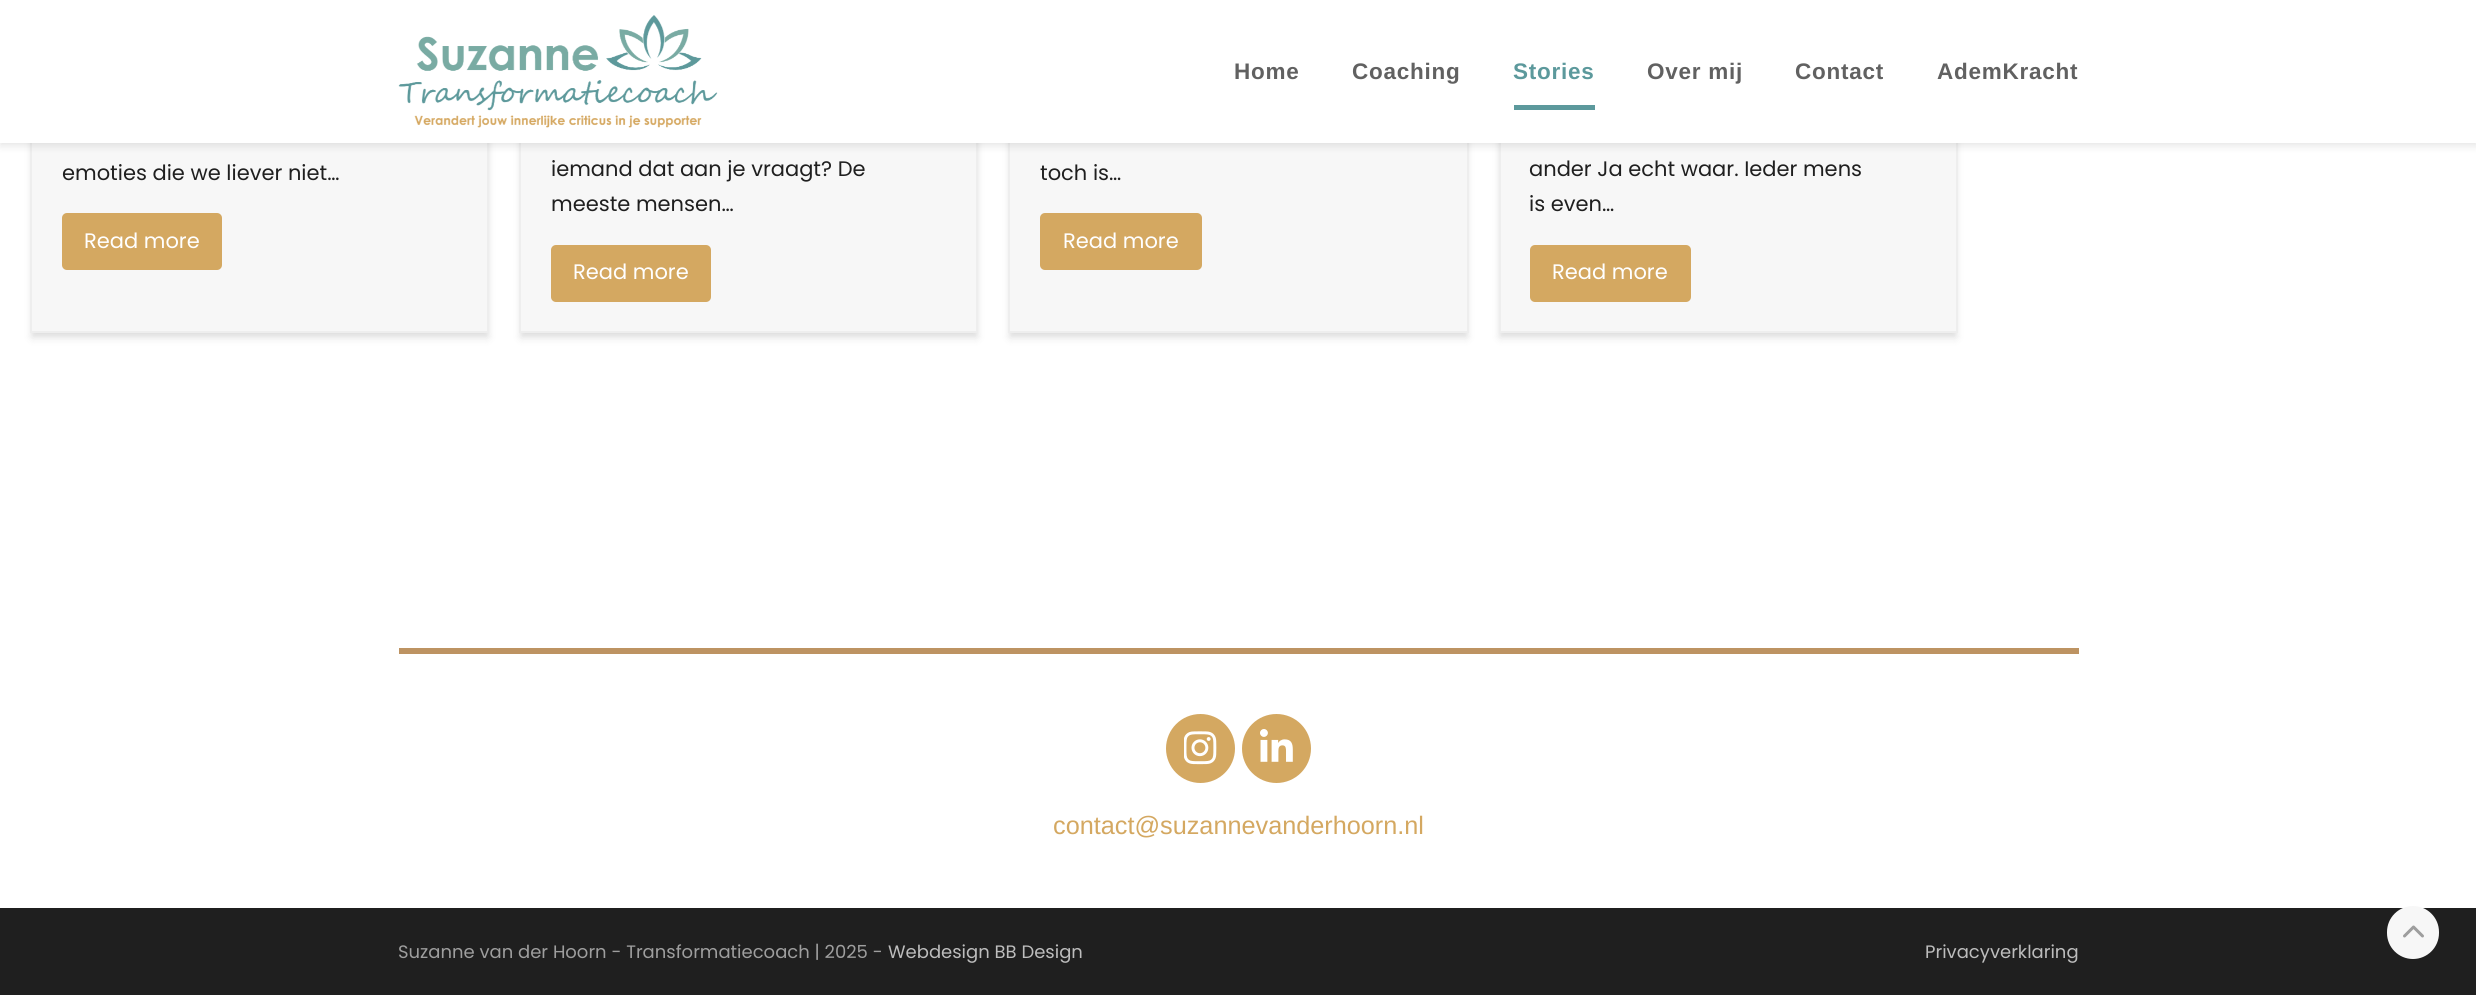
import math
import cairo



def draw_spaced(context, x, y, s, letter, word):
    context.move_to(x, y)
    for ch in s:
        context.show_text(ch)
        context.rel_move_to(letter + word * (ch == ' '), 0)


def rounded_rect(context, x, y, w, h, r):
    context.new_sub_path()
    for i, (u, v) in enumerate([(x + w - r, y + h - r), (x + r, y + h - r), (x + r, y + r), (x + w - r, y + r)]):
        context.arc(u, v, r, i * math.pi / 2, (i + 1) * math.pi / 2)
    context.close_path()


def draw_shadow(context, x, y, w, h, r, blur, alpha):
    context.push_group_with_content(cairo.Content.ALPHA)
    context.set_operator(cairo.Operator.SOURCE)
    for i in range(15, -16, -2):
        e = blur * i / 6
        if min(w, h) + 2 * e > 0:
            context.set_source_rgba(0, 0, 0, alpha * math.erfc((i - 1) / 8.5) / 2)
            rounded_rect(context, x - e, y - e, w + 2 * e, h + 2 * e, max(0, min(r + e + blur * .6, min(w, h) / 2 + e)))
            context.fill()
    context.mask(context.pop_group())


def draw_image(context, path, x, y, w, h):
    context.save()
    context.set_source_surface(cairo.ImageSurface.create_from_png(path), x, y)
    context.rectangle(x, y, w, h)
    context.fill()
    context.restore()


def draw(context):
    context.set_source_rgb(1, 1, 1)
    context.paint()
    context.set_source_rgb(0, 0, 0)
    draw_shadow(context, 32, -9, 456, 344, 0, 3, 0.06)
    draw_shadow(context, 32, -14, 456, 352, 0, 4.5, 0.1)
    context.set_source_rgb(247 / 255, 247 / 255, 247 / 255)
    context.rectangle(32, 143, 455, 188)
    context.fill()
    context.rectangle(31, 3, 457, 329)
    context.set_source_rgb(238 / 255, 238 / 255, 238 / 255)
    context.stroke()
    context.set_source_rgb(0, 0, 0)
    draw_shadow(context, 521, -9, 456, 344, 0, 3, 0.06)
    draw_shadow(context, 521, -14, 456, 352, 0, 4.5, 0.1)
    context.set_source_rgb(247 / 255, 247 / 255, 247 / 255)
    context.rectangle(521, 143, 455, 188)
    context.fill()
    context.rectangle(520, 3, 457, 329)
    context.set_source_rgb(238 / 255, 238 / 255, 238 / 255)
    context.stroke()
    context.set_source_rgb(0, 0, 0)
    draw_shadow(context, 1010, -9, 457, 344, 0, 3, 0.06)
    draw_shadow(context, 1010, -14, 457, 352, 0, 4.5, 0.1)
    context.set_source_rgb(247 / 255, 247 / 255, 247 / 255)
    context.rectangle(1010, 143, 457, 188)
    context.fill()
    context.rectangle(1009, 3, 459, 329)
    context.set_source_rgb(238 / 255, 238 / 255, 238 / 255)
    context.stroke()
    context.set_source_rgb(0, 0, 0)
    draw_shadow(context, 1500, -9, 456, 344, 0, 3, 0.06)
    draw_shadow(context, 1500, -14, 456, 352, 0, 4.5, 0.1)
    context.set_source_rgb(247 / 255, 247 / 255, 247 / 255)
    context.rectangle(1501, 143, 455, 188)
    context.fill()
    context.rectangle(1500, 3, 457, 329)
    context.set_source_rgb(238 / 255, 238 / 255, 238 / 255)
    context.stroke()
    context.set_source_rgb(0, 0, 0)
    draw_shadow(context, 0, 3, 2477, 143, 0, 4, 0.1)
    context.set_source_rgb(1, 1, 1)
    context.rectangle(0, 0, 2476, 143)
    context.fill()
    draw_image(context, "images/1.png", 398, 15, 320, 113)
    context.set_source_rgb(92 / 255, 153 / 255, 156 / 255)
    context.rectangle(1514, 105, 81, 5)
    context.fill()
    context.set_source_rgb(212 / 255, 168 / 255, 97 / 255)
    rounded_rect(context, 62, 213, 160, 57, 5)
    context.fill()
    rounded_rect(context, 551, 245, 160, 57, 5)
    context.fill()
    rounded_rect(context, 1040, 213, 162, 57, 5)
    context.fill()
    rounded_rect(context, 1530, 245, 161, 57, 5)
    context.fill()
    context.set_source_rgb(189 / 255, 147 / 255, 98 / 255)
    context.rectangle(399, 648, 1680, 6)
    context.fill()
    context.set_source_rgb(212 / 255, 168 / 255, 97 / 255)
    context.arc(1200.5, 748.5, 34.5, 0, 2 * math.pi)
    context.fill()
    draw_image(context, "images/2.png", 1184, 731, 33, 34)
    context.arc(1276.5, 748.5, 34.5, 0, 2 * math.pi)
    context.fill()
    draw_image(context, "images/3.png", 1260, 729, 33, 33)
    context.set_source_rgb(31 / 255, 31 / 255, 31 / 255)
    context.rectangle(0, 908, 2476, 87)
    context.fill()
    context.set_source_rgb(247 / 255, 247 / 255, 247 / 255)
    rounded_rect(context, 2387, 906, 52, 53, 26)
    context.fill()
    draw_image(context, "images/4.png", 2403, 925, 21, 13)
    context.select_font_face("Liberation Sans", cairo.FontSlant.NORMAL, cairo.FontWeight.BOLD)
    context.set_font_size(22.5)
    context.set_source_rgb(97 / 255, 97 / 255, 97 / 255)
    draw_spaced(context, 1234, 79, "Home", 0.75, 0)
    draw_spaced(context, 1352, 79, "Coaching", 0.75, 0)
    context.set_source_rgb(92 / 255, 153 / 255, 156 / 255)
    draw_spaced(context, 1513, 79, "Stories", 0.75, 0)
    context.set_source_rgb(97 / 255, 97 / 255, 97 / 255)
    draw_spaced(context, 1647, 79, "Over mij", 0.75, 0)
    draw_spaced(context, 1795, 79, "Contact", 0.75, 0)
    draw_spaced(context, 1937, 79, "AdemKracht", 0.75, 0)
    context.select_font_face("Poppins")
    context.set_font_size(21)
    context.set_source_rgb(31 / 255, 31 / 255, 31 / 255)
    context.move_to(62, 180)
    context.show_text("emoties die we liever niet…")
    context.set_source_rgb(1, 1, 1)
    context.move_to(84, 248)
    context.show_text("Read more")
    context.set_source_rgb(31 / 255, 31 / 255, 31 / 255)
    context.move_to(551, 176)
    context.show_text("iemand dat aan je vraagt? De")
    context.move_to(551, 211)
    context.show_text("meeste mensen…")
    context.set_source_rgb(1, 1, 1)
    context.move_to(573, 279)
    context.show_text("Read more")
    context.set_source_rgb(31 / 255, 31 / 255, 31 / 255)
    context.move_to(1040, 180)
    context.show_text("toch is…")
    context.set_source_rgb(1, 1, 1)
    context.move_to(1063, 248)
    context.show_text("Read more")
    context.set_source_rgb(31 / 255, 31 / 255, 31 / 255)
    context.move_to(1529, 176)
    context.show_text("ander Ja echt waar. Ieder mens")
    context.move_to(1529, 211)
    context.show_text("is even…")
    context.set_source_rgb(1, 1, 1)
    context.move_to(1552, 279)
    context.show_text("Read more")
    context.select_font_face("Liberation Sans")
    context.set_font_size(25.25)
    context.set_source_rgb(212 / 255, 168 / 255, 97 / 255)
    context.move_to(1053, 834)
    context.show_text("contact@suzannevanderhoorn.nl")
    context.select_font_face("Poppins")
    context.set_font_size(18)
    context.set_source_rgb(158 / 255, 158 / 255, 158 / 255)
    context.move_to(398, 958)
    context.show_text("Suzanne van der Hoorn - Transformatiecoach | 2025 -")
    context.set_source_rgb(189 / 255, 189 / 255, 189 / 255)
    context.move_to(888, 958)
    context.show_text("Webdesign BB Design")
    context.move_to(1925, 958)
    context.show_text("Privacyverklaring")


surface = cairo.ImageSurface(cairo.Format.RGB24, 2476, 995)
context = cairo.Context(surface)
options = cairo.FontOptions()
options.set_hint_metrics(cairo.HintMetrics.OFF)
options.set_hint_style(cairo.HintStyle.NONE)
context.set_font_options(options)
context.set_miter_limit(4)
draw(context)
surface.write_to_png("out.png")
